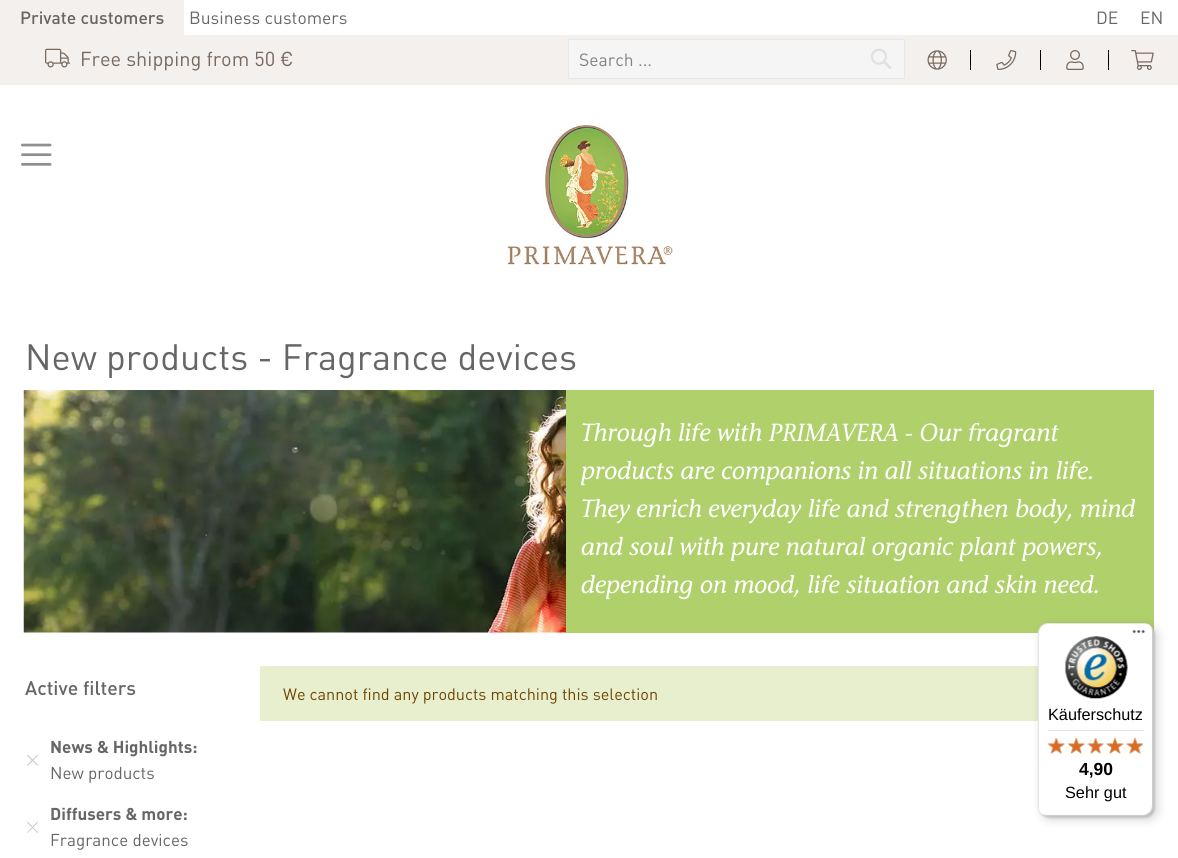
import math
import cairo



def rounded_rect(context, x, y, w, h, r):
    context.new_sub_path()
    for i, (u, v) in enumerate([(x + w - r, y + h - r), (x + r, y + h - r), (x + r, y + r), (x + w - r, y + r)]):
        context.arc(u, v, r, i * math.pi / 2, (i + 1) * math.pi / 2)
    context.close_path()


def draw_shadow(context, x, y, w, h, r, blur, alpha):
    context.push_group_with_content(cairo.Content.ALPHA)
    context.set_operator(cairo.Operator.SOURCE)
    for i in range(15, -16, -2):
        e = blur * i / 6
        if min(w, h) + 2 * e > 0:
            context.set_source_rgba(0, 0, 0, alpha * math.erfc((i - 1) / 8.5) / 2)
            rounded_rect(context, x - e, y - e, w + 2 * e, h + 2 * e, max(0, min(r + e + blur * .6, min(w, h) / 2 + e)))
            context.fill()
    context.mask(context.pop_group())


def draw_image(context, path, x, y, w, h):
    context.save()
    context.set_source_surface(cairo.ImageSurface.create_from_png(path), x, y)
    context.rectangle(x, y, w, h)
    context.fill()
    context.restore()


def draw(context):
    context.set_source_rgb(1, 1, 1)
    context.paint()
    context.set_source_rgb(243 / 255, 240 / 255, 238 / 255)
    context.rectangle(0, 0, 184, 35)
    context.fill()
    context.rectangle(0, 35, 1178, 50)
    context.fill()
    draw_image(context, "images/1.png", 45, 48, 25, 20)
    context.set_source_rgb(245 / 255, 245 / 255, 245 / 255)
    rounded_rect(context, 568.5, 39.5, 336, 39, 0.5)
    context.fill_preserve()
    context.set_source_rgb(230 / 255, 230 / 255, 230 / 255)
    context.set_line_width(1)
    context.stroke()
    draw_image(context, "images/2.png", 871, 48, 21, 21)
    draw_image(context, "images/3.png", 927, 50, 20, 20)
    context.set_source_rgb(0, 0, 0)
    context.rectangle(970, 50, 1, 20)
    context.fill()
    draw_image(context, "images/4.png", 996, 50, 21, 20)
    context.rectangle(1040, 50, 1, 20)
    context.fill()
    draw_image(context, "images/5.png", 1066, 50, 18, 20)
    context.rectangle(1108, 50, 1, 20)
    context.fill()
    draw_image(context, "images/6.png", 1131, 50, 23, 20)
    draw_image(context, "images/7.png", 21, 143, 31, 23)
    draw_image(context, "images/8.png", 507, 125, 166, 140)
    draw_image(context, "images/9.png", 23, 390, 543, 243)
    context.set_source_rgb(176 / 255, 208 / 255, 108 / 255)
    context.rectangle(566, 390, 588, 243)
    context.fill()
    context.set_source_rgb(199 / 255, 199 / 255, 199 / 255)
    context.new_path()
    context.move_to(27, 765)
    context.line_to(37.5, 754.5)
    context.line_to(38, 755.5)
    context.line_to(27.5, 766)
    context.close_path()
    context.fill()
    context.new_path()
    context.move_to(27.5, 754.5)
    context.line_to(38, 765)
    context.line_to(37.5, 766)
    context.line_to(27, 755.5)
    context.close_path()
    context.fill()
    context.new_path()
    context.move_to(27, 832.5)
    context.line_to(37.5, 821.5)
    context.line_to(38, 822.5)
    context.line_to(27.5, 833)
    context.close_path()
    context.fill()
    context.new_path()
    context.move_to(27.5, 821.5)
    context.line_to(38, 832.5)
    context.line_to(37.5, 833)
    context.line_to(27, 822.5)
    context.close_path()
    context.fill()
    context.set_source_rgb(231 / 255, 239 / 255, 206 / 255)
    context.rectangle(260, 666, 778, 55)
    context.fill()
    context.set_source_rgb(0, 0, 0)
    draw_shadow(context, 1041, 626, 117, 194, 10, 5, 0.15)
    draw_shadow(context, 1039, 624, 116, 194, 10, 1, 0.15)
    context.set_source_rgb(1, 1, 1)
    rounded_rect(context, 1038, 623, 116, 193, 10)
    context.fill()
    context.set_source_rgba(0, 0, 0, 0.1)
    context.new_path()
    context.move_to(1049, 624)
    context.line_to(1145, 624)
    context.curve_to(1147, 624, 1149, 624, 1150, 625)
    context.curve_to(1149, 624, 1146, 623, 1144, 623)
    context.line_to(1048, 623)
    context.curve_to(1042, 623, 1038, 627, 1038, 633)
    context.line_to(1038, 806)
    context.curve_to(1038, 808, 1039, 810, 1040, 812)
    context.line_to(1039, 808)
    context.line_to(1039, 634)
    context.curve_to(1039, 628, 1043, 624, 1049, 624)
    context.close_path()
    context.fill()
    context.set_source_rgba(0, 0, 0, 0.2)
    context.new_path()
    context.move_to(1042, 814)
    context.curve_to(1044, 815, 1046, 816, 1048, 816)
    context.line_to(1144, 816)
    context.curve_to(1150, 816, 1154, 812, 1154, 806)
    context.line_to(1154, 633)
    context.curve_to(1154, 630, 1152, 627, 1150, 625)
    context.curve_to(1151, 627, 1152, 629, 1152, 631)
    context.line_to(1152, 805)
    context.curve_to(1152, 811, 1148, 815, 1142, 815)
    context.line_to(1046, 815)
    context.close_path()
    context.fill()
    context.set_source_rgba(50 / 255, 50 / 255, 50 / 255, 0.2)
    context.new_path()
    context.move_to(1143, 816)
    context.line_to(1144, 816)
    context.curve_to(1150, 816, 1154, 812, 1154, 806)
    context.line_to(1154, 633)
    context.curve_to(1154, 631, 1153, 628, 1152, 627)
    context.curve_to(1153, 628, 1153, 630, 1153, 632)
    context.line_to(1153, 806)
    context.curve_to(1153, 811, 1149, 816, 1143, 816)
    context.close_path()
    context.fill()
    context.set_source_rgba(1, 1, 1, 0.3)
    context.new_path()
    context.move_to(1143, 816)
    context.line_to(1144, 816)
    context.curve_to(1150, 816, 1154, 812, 1154, 806)
    context.line_to(1154, 633)
    context.curve_to(1154, 631, 1153, 628, 1152, 627)
    context.curve_to(1153, 628, 1153, 630, 1153, 632)
    context.line_to(1153, 806)
    context.curve_to(1153, 811, 1149, 816, 1143, 816)
    context.close_path()
    context.fill()
    draw_image(context, "images/10.png", 1132, 630, 14, 3)
    draw_image(context, "images/11.png", 1065, 636, 63, 63)
    context.set_source_rgb(229 / 255, 229 / 255, 229 / 255)
    context.rectangle(1048, 730, 96, 1)
    context.fill()
    draw_image(context, "images/17.png", 1047, 738, 18, 16)
    draw_image(context, "images/12.png", 1047, 737, 18, 17)
    draw_image(context, "images/18.png", 1068, 738, 17, 15)
    draw_image(context, "images/13.png", 1067, 737, 18, 17)
    draw_image(context, "images/19.png", 1087, 738, 17, 16)
    draw_image(context, "images/14.png", 1087, 737, 17, 17)
    draw_image(context, "images/20.png", 1106, 738, 18, 15)
    draw_image(context, "images/15.png", 1106, 737, 18, 17)
    draw_image(context, "images/21.png", 1126, 738, 18, 16)
    draw_image(context, "images/16.png", 1126, 737, 17, 17)
    context.select_font_face("DIN Medium")
    context.set_font_size(17.5)
    context.set_source_rgb(102 / 255, 102 / 255, 102 / 255)
    context.move_to(20, 24)
    context.show_text("Private customers")
    context.select_font_face("DIN")
    context.move_to(189, 24)
    context.show_text("Business customers")
    context.move_to(1096, 24)
    context.show_text("DE")
    context.move_to(1140, 24)
    context.show_text("EN")
    context.set_font_size(20)
    context.set_source_rgb(120 / 255, 105 / 255, 94 / 255)
    context.move_to(80, 66)
    context.show_text("Free shipping from 50 €")
    context.set_font_size(17.5)
    context.set_source_rgb(130 / 255, 130 / 255, 130 / 255)
    context.move_to(579, 66)
    context.show_text("Search ...")
    context.set_font_size(36.25)
    context.set_source_rgb(102 / 255, 102 / 255, 102 / 255)
    context.move_to(25, 370)
    context.show_text("New products - Fragrance devices")
    context.select_font_face("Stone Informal", cairo.FontSlant.ITALIC)
    context.set_font_size(24.7)
    context.set_source_rgb(1, 1, 1)
    context.move_to(581, 441)
    context.show_text("Through life with PRIMAVERA - Our fragrant")
    context.move_to(581, 479)
    context.show_text("products are companions in all situations in life.")
    context.move_to(581, 517)
    context.show_text("They enrich everyday life and strengthen body, mind")
    context.move_to(581, 555)
    context.show_text("and soul with pure natural organic plant powers,")
    context.move_to(581, 593)
    context.show_text("depending on mood, life situation and skin need.")
    context.select_font_face("DIN Medium")
    context.set_font_size(19.5)
    context.set_source_rgb(102 / 255, 102 / 255, 102 / 255)
    context.move_to(25, 695)
    context.show_text("Active filters")
    context.select_font_face("DIN", cairo.FontSlant.NORMAL, cairo.FontWeight.BOLD)
    context.set_font_size(17)
    context.move_to(50, 753)
    context.show_text("News & Highlights:")
    context.select_font_face("DIN")
    context.move_to(50, 779)
    context.show_text("New products")
    context.select_font_face("DIN", cairo.FontSlant.NORMAL, cairo.FontWeight.BOLD)
    context.move_to(50, 820)
    context.show_text("Diffusers & more:")
    context.select_font_face("DIN")
    context.move_to(50, 846)
    context.show_text("Fragrance devices")
    context.set_font_size(16.25)
    context.set_source_rgb(111 / 255, 68 / 255, 0)
    context.move_to(283, 700)
    context.show_text("We cannot find any products matching this selection")
    context.select_font_face("Liberation Sans")
    context.set_source_rgb(0, 0, 0)
    context.move_to(1048, 720)
    context.show_text("Käuferschutz")
    context.select_font_face("Liberation Sans", cairo.FontSlant.NORMAL, cairo.FontWeight.BOLD)
    context.set_font_size(17.5)
    context.move_to(1079, 775)
    context.show_text("4,90")
    context.select_font_face("Liberation Sans")
    context.set_font_size(16.25)
    context.move_to(1065, 798)
    context.show_text("Sehr gut")


surface = cairo.ImageSurface(cairo.Format.RGB24, 1178, 858)
context = cairo.Context(surface)
options = cairo.FontOptions()
options.set_hint_metrics(cairo.HintMetrics.OFF)
options.set_hint_style(cairo.HintStyle.NONE)
context.set_font_options(options)
context.set_miter_limit(4)
draw(context)
surface.write_to_png("out.png")
